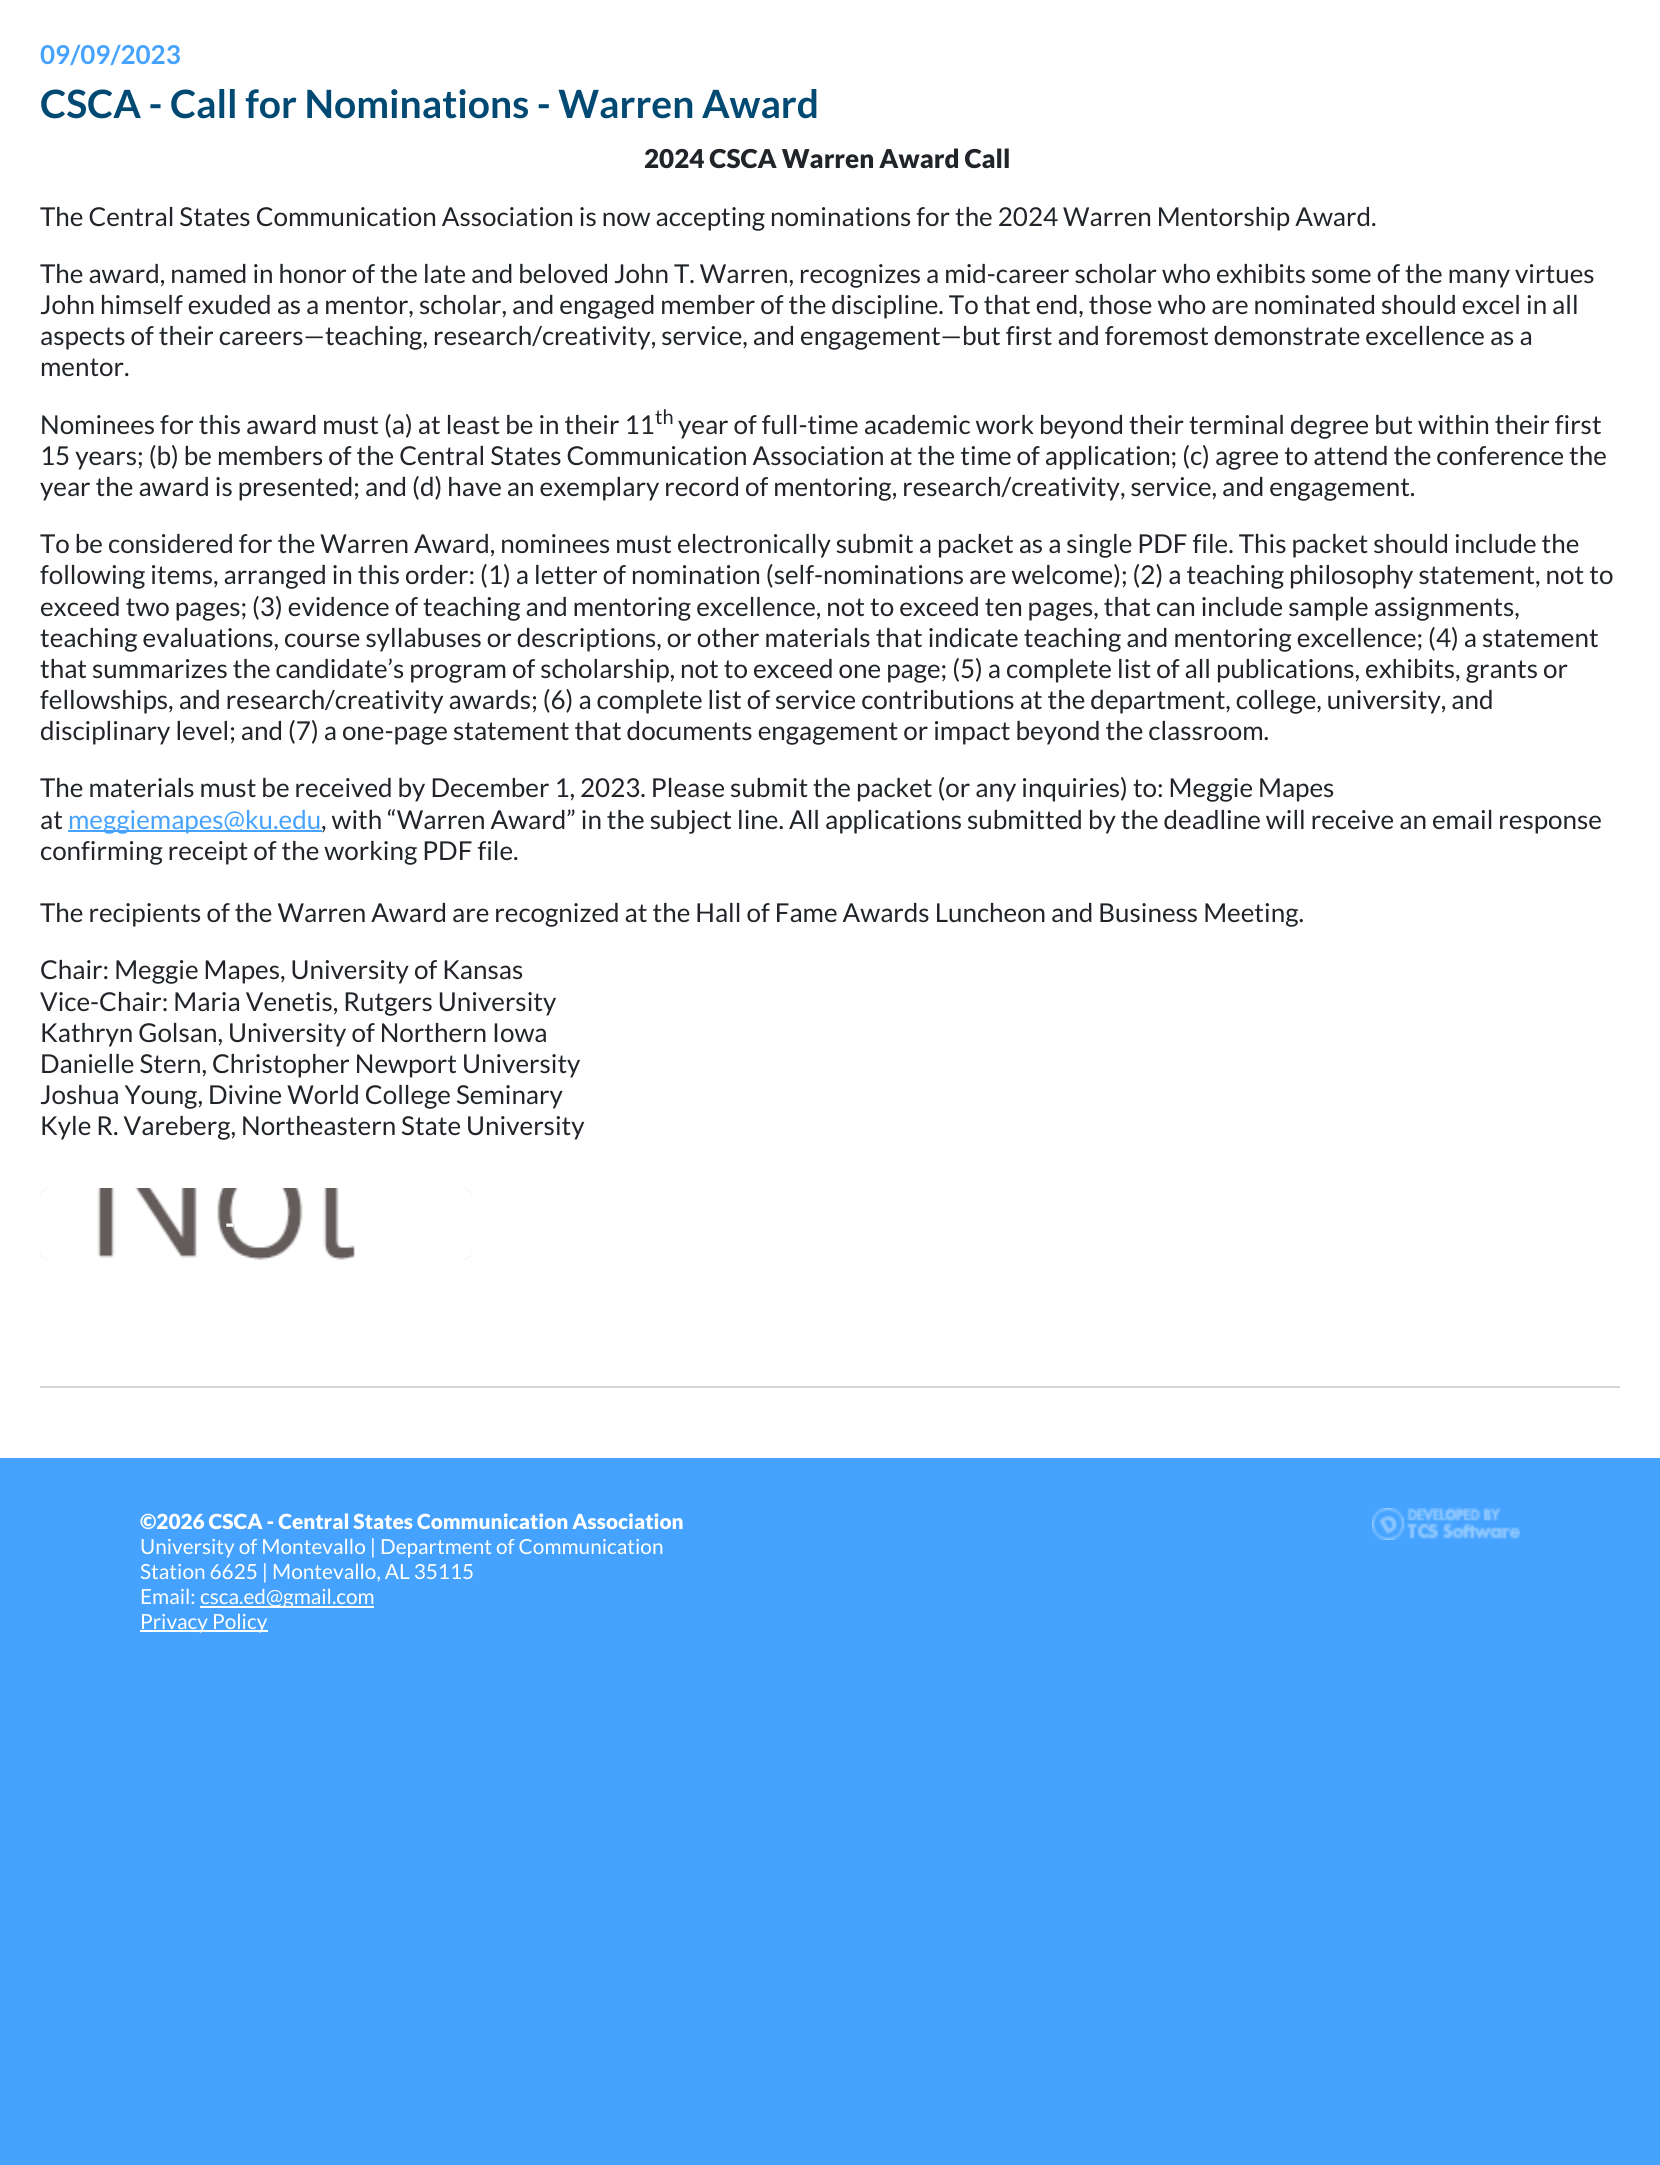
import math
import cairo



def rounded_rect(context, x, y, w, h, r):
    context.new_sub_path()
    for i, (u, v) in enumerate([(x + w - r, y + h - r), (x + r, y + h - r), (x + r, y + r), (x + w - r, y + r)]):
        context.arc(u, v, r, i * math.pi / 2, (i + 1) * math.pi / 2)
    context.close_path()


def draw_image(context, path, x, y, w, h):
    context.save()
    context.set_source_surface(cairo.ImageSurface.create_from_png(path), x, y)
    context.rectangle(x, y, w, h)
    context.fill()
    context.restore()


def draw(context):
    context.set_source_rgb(69 / 255, 163 / 255, 1)
    context.paint()
    context.set_source_rgb(1, 1, 1)
    context.rectangle(0, 0, 1660, 1458)
    context.fill()
    context.set_source_rgb(69 / 255, 163 / 255, 1)
    context.rectangle(68, 830, 254, 2)
    context.fill()
    context.set_source_rgb(212 / 255, 212 / 255, 212 / 255)
    rounded_rect(context, 40, 1188, 432, 72, 10)
    context.fill()
    draw_image(context, "images/1.png", 40, 1188, 432, 72)
    context.rectangle(40, 1386, 1580, 2)
    context.fill()
    context.set_source_rgb(1, 1, 1)
    context.rectangle(200, 1606, 174, 2)
    context.fill()
    context.rectangle(140, 1630, 128, 2)
    context.fill()
    draw_image(context, "images/2.png", 1372, 1508, 148, 32)
    context.select_font_face("Lato", cairo.FontSlant.NORMAL, cairo.FontWeight.BOLD)
    context.set_font_size(26)
    context.set_source_rgb(69 / 255, 163 / 255, 1)
    context.move_to(40, 64)
    context.show_text("09/09/2023")
    context.set_font_size(39)
    context.set_source_rgb(0, 73 / 255, 115 / 255)
    context.move_to(40, 118)
    context.show_text("CSCA - Call for Nominations - Warren Award")
    context.select_font_face("Lato Black")
    context.set_font_size(26)
    context.set_source_rgb(33 / 255, 37 / 255, 41 / 255)
    context.move_to(644, 168)
    context.show_text("2024 CSCA Warren Award Call")
    context.select_font_face("Lato")
    context.move_to(40, 226)
    context.show_text("The Central States Communication Association is now accepting nominations for the 2024 Warren Mentorship Award.")
    context.move_to(40, 283)
    context.show_text("The award, named in honor of the late and beloved John T. Warren, recognizes a mid-career scholar who exhibits some of the many virtues")
    context.move_to(40, 314)
    context.show_text("John himself exuded as a mentor, scholar, and engaged member of the discipline. To that end, those who are nominated should excel in all")
    context.move_to(40, 345)
    context.show_text("aspects of their careers—teaching, research/creativity, service, and engagement—but first and foremost demonstrate excellence as a")
    context.move_to(40, 376)
    context.show_text("mentor.")
    context.move_to(40, 434)
    context.show_text("Nominees for this award must (a) at least be in their 11")
    context.set_font_size(20)
    context.move_to(655, 424)
    context.show_text("th")
    context.set_font_size(26)
    context.move_to(678, 434)
    context.show_text("year of full-time academic work beyond their terminal degree but within their first")
    context.move_to(40, 465)
    context.show_text("15 years; (b) be members of the Central States Communication Association at the time of application; (c) agree to attend the conference the")
    context.move_to(40, 496)
    context.show_text("year the award is presented; and (d) have an exemplary record of mentoring, research/creativity, service, and engagement.")
    context.move_to(40, 553)
    context.show_text("To be considered for the Warren Award, nominees must electronically submit a packet as a single PDF file. This packet should include the")
    context.move_to(40, 584)
    context.show_text("following items, arranged in this order: (1) a letter of nomination (self-nominations are welcome); (2) a teaching philosophy statement, not to")
    context.move_to(40, 616)
    context.show_text("exceed two pages; (3) evidence of teaching and mentoring excellence, not to exceed ten pages, that can include sample assignments,")
    context.move_to(40, 647)
    context.show_text("teaching evaluations, course syllabuses or descriptions, or other materials that indicate teaching and mentoring excellence; (4) a statement")
    context.move_to(40, 678)
    context.show_text("that summarizes the candidate’s program of scholarship, not to exceed one page; (5) a complete list of all publications, exhibits, grants or")
    context.move_to(40, 709)
    context.show_text("fellowships, and research/creativity awards; (6) a complete list of service contributions at the department, college, university, and")
    context.move_to(40, 740)
    context.show_text("disciplinary level; and (7) a one-page statement that documents engagement or impact beyond the classroom.")
    context.move_to(40, 797)
    context.show_text("The materials must be received by December 1, 2023. Please submit the packet (or any inquiries) to: Meggie Mapes")
    context.move_to(40, 829)
    context.show_text("at")
    context.set_source_rgb(69 / 255, 163 / 255, 1)
    context.move_to(68, 829)
    context.show_text("meggiemapes@ku.edu")
    context.set_source_rgb(33 / 255, 37 / 255, 41 / 255)
    context.move_to(321, 829)
    context.show_text(", with “Warren Award” in the subject line. All applications submitted by the deadline will receive an email response")
    context.move_to(40, 860)
    context.show_text("confirming receipt of the working PDF file.")
    context.move_to(40, 922)
    context.show_text("The recipients of the Warren Award are recognized at the Hall of Fame Awards Luncheon and Business Meeting.")
    context.move_to(40, 979)
    context.show_text("Chair: Meggie Mapes, University of Kansas")
    context.move_to(40, 1011)
    context.show_text("Vice-Chair: Maria Venetis, Rutgers University")
    context.move_to(40, 1042)
    context.show_text("Kathryn Golsan, University of Northern Iowa")
    context.move_to(40, 1073)
    context.show_text("Danielle Stern, Christopher Newport University")
    context.move_to(40, 1104)
    context.show_text("Joshua Young, Divine World College Seminary")
    context.move_to(40, 1135)
    context.show_text("Kyle R. Vareberg, Northeastern State University")
    context.select_font_face("Lato Black")
    context.set_source_rgb(1, 1, 1)
    context.move_to(225, 1233)
    context.show_text("-")
    context.set_font_size(20.8)
    context.move_to(140, 1529)
    context.show_text("©2026 CSCA - Central States Communication Association")
    context.select_font_face("Lato")
    context.move_to(140, 1554)
    context.show_text("University of Montevallo | Department of Communication")
    context.move_to(140, 1579)
    context.show_text("Station 6625 | Montevallo, AL 35115")
    context.move_to(140, 1604)
    context.show_text("Email:")
    context.move_to(200, 1604)
    context.show_text("csca.ed@gmail.com")
    context.move_to(140, 1629)
    context.show_text("Privacy Policy")


surface = cairo.ImageSurface(cairo.Format.RGB24, 1660, 2165)
context = cairo.Context(surface)
options = cairo.FontOptions()
options.set_hint_metrics(cairo.HintMetrics.OFF)
options.set_hint_style(cairo.HintStyle.NONE)
context.set_font_options(options)
context.set_miter_limit(4)
draw(context)
surface.write_to_png("out.png")
